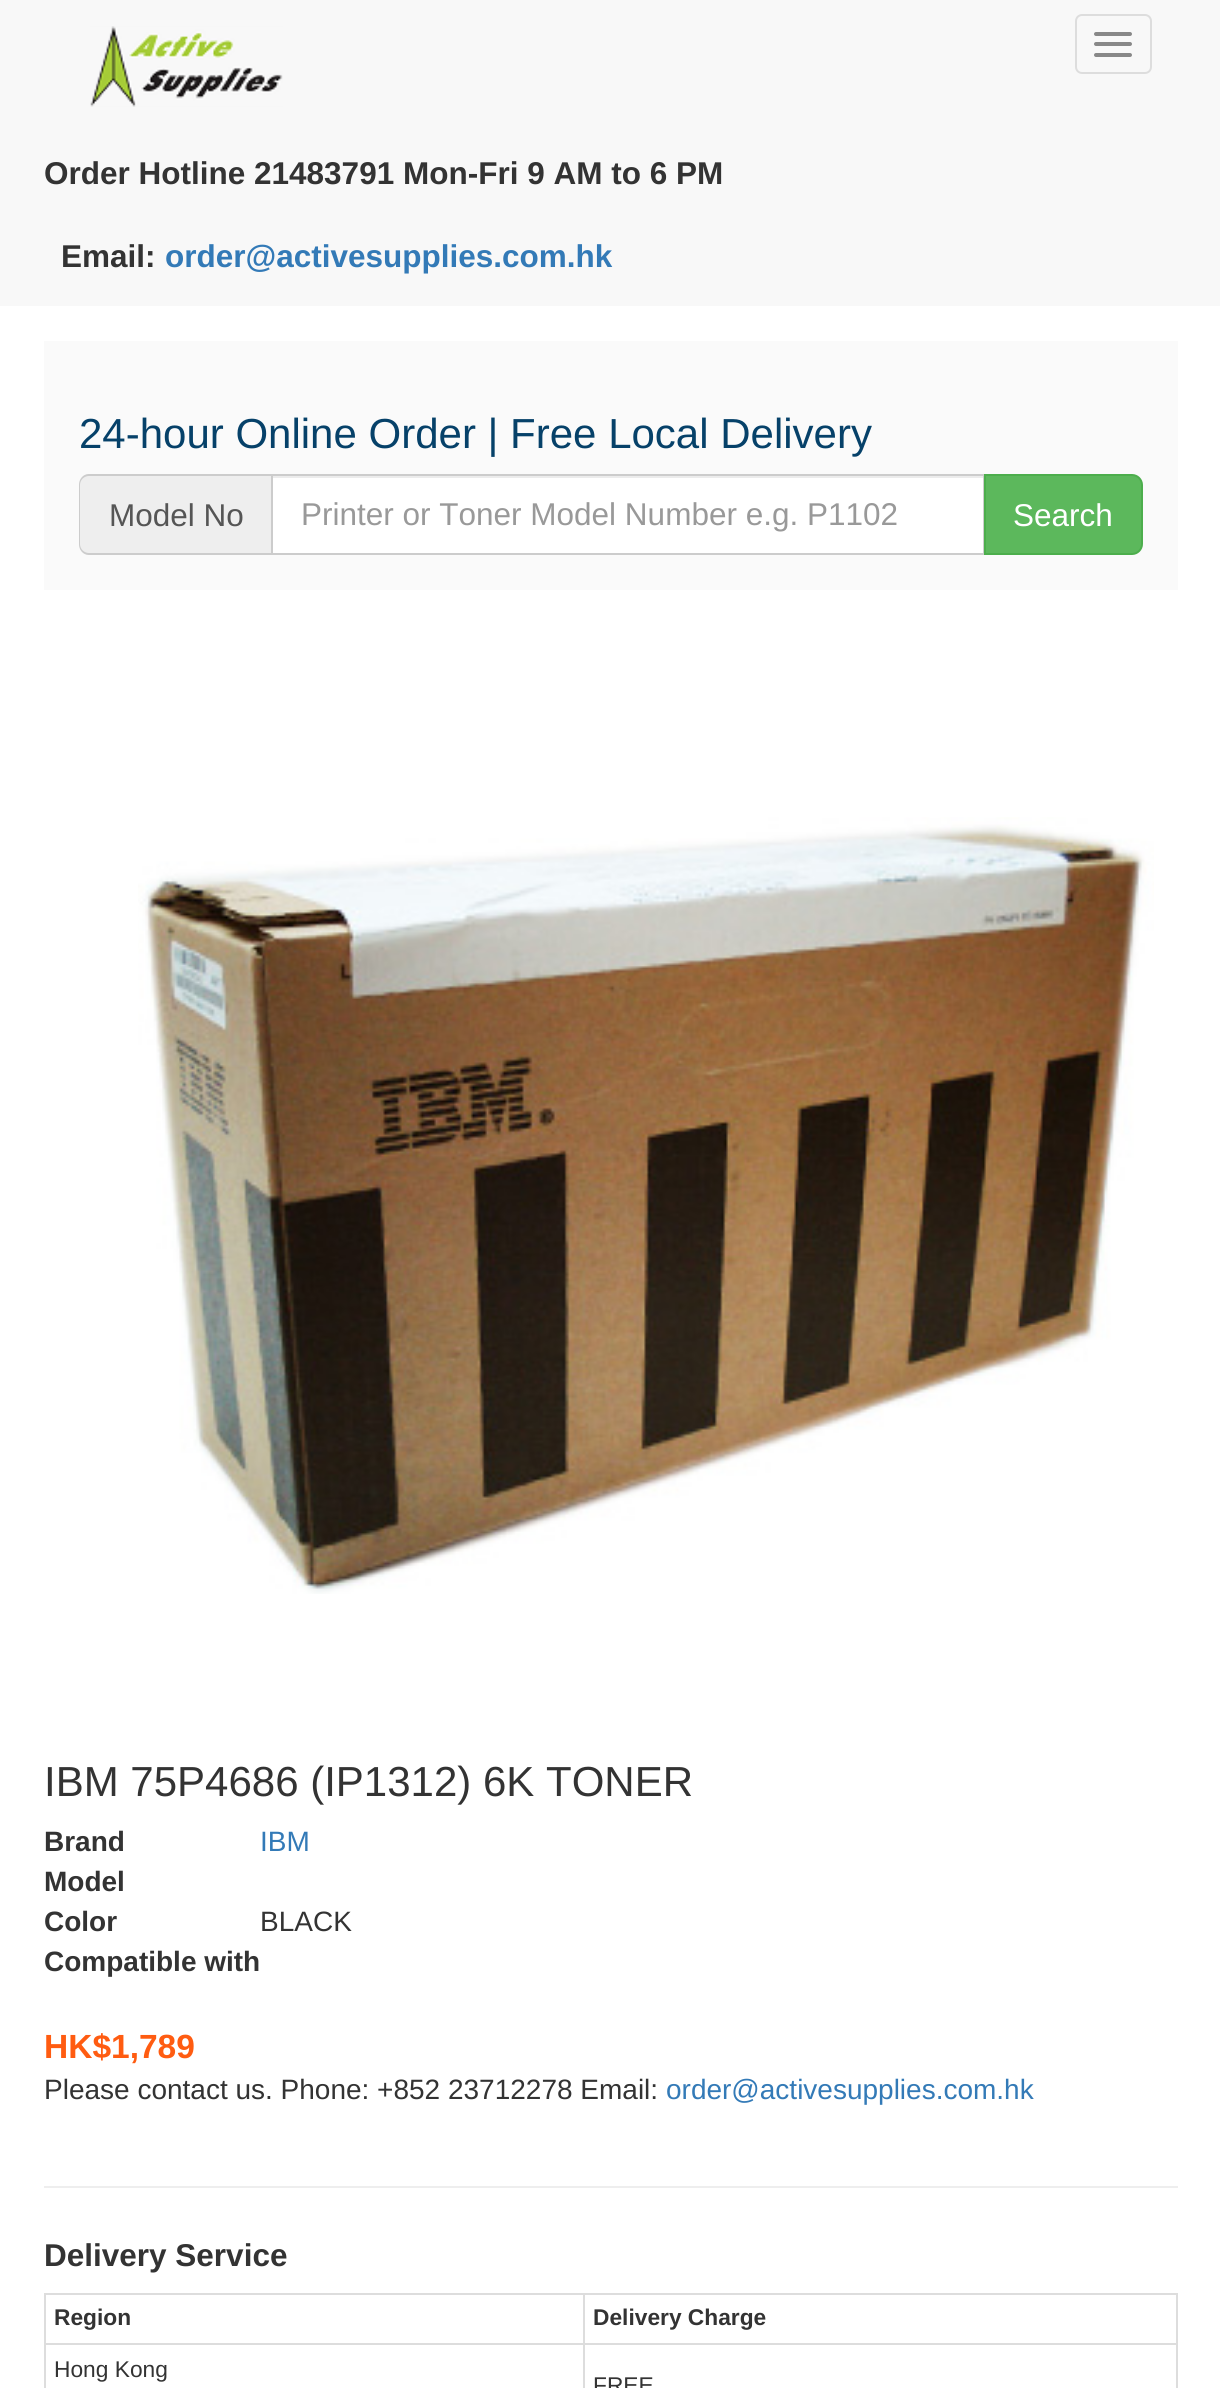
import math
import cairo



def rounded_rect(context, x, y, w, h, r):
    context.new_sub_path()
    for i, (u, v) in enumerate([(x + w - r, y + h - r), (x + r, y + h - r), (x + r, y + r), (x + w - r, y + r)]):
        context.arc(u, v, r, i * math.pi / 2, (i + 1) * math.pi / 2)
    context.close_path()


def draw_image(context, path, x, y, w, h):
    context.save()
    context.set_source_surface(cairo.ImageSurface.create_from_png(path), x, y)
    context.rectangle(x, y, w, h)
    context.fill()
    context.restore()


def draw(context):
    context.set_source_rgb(1, 1, 1)
    context.paint()
    context.set_source_rgb(248 / 255, 248 / 255, 248 / 255)
    context.rectangle(0, 0, 1220, 306)
    context.fill()
    draw_image(context, "images/1.png", 90, 26, 193, 81)
    rounded_rect(context, 1076, 15, 75, 58, 6)
    context.set_source_rgb(221 / 255, 221 / 255, 221 / 255)
    context.stroke()
    context.set_source_rgb(136 / 255, 136 / 255, 136 / 255)
    rounded_rect(context, 1094, 32, 38, 4, 2)
    context.fill()
    rounded_rect(context, 1094, 42, 38, 4, 2)
    context.fill()
    rounded_rect(context, 1094, 53, 38, 4, 2)
    context.fill()
    context.set_source_rgb(250 / 255, 250 / 255, 250 / 255)
    context.rectangle(44, 341, 1134, 249)
    context.fill()
    context.set_source_rgb(238 / 255, 238 / 255, 238 / 255)
    context.new_path()
    context.move_to(90, 474)
    context.line_to(271, 474)
    context.line_to(271, 555)
    context.line_to(90, 555)
    context.curve_to(84, 555, 79, 550, 79, 544)
    context.line_to(79, 485)
    context.curve_to(79, 479, 84, 474, 90, 474)
    context.close_path()
    context.fill()
    context.set_source_rgb(204 / 255, 204 / 255, 204 / 255)
    context.set_fill_rule(cairo.FillRule.EVEN_ODD)
    context.new_path()
    context.move_to(89, 474)
    context.line_to(271, 474)
    context.line_to(271, 555)
    context.line_to(89, 555)
    context.curve_to(83, 555, 79, 550, 79, 544)
    context.line_to(79, 485)
    context.curve_to(79, 479, 83, 474, 89, 474)
    context.close_path()
    context.move_to(89, 476)
    context.line_to(271, 476)
    context.line_to(271, 553)
    context.line_to(89, 553)
    context.curve_to(84, 553, 80, 549, 80, 544)
    context.line_to(80, 485)
    context.curve_to(80, 480, 84, 476, 89, 476)
    context.close_path()
    context.fill()
    context.set_source_rgb(1, 1, 1)
    context.rectangle(273, 478, 710, 75)
    context.fill()
    context.set_source_rgb(236 / 255, 236 / 255, 236 / 255)
    context.rectangle(273, 476, 711, 2)
    context.fill()
    context.rectangle(272, 475, 712, 79)
    context.set_source_rgb(204 / 255, 204 / 255, 204 / 255)
    context.stroke()
    context.set_source_rgb(92 / 255, 184 / 255, 92 / 255)
    context.new_path()
    context.move_to(985, 475)
    context.line_to(1132, 475)
    context.curve_to(1137.5, 475, 1142, 479.5, 1142, 485)
    context.line_to(1142, 544)
    context.curve_to(1142, 549.5, 1137.5, 554, 1132, 554)
    context.line_to(985, 554)
    context.close_path()
    context.fill_preserve()
    context.set_source_rgb(76 / 255, 174 / 255, 76 / 255)
    context.stroke()
    draw_image(context, "images/2.png", 138, 817, 1016, 777)
    context.set_source_rgb(238 / 255, 238 / 255, 238 / 255)
    context.rectangle(44, 2186, 1134, 2)
    context.fill()
    context.set_source_rgb(221 / 255, 221 / 255, 221 / 255)
    context.rectangle(44, 2293, 1134, 2)
    context.fill()
    context.rectangle(1176, 2293, 2, 95)
    context.fill()
    context.rectangle(44, 2293, 2, 95)
    context.fill()
    context.rectangle(583, 2343, 595, 2)
    context.fill()
    context.rectangle(583, 2343, 2, 45)
    context.fill()
    context.rectangle(44, 2343, 541, 2)
    context.fill()
    context.rectangle(583, 2293, 2, 52)
    context.fill()
    context.select_font_face("Liberation Sans", cairo.FontSlant.NORMAL, cairo.FontWeight.BOLD)
    context.set_font_size(31.5)
    context.set_source_rgb(51 / 255, 51 / 255, 51 / 255)
    context.move_to(44, 184)
    context.show_text("Order Hotline 21483791 Mon-Fri 9 AM to 6 PM")
    context.move_to(61, 267)
    context.show_text("Email:")
    context.set_source_rgb(51 / 255, 122 / 255, 183 / 255)
    context.move_to(165, 267)
    context.show_text("order@activesupplies.com.hk")
    context.select_font_face("Liberation Sans")
    context.set_font_size(42)
    context.set_source_rgb(6 / 255, 65 / 255, 105 / 255)
    context.move_to(79, 448)
    context.show_text("24-hour Online Order | Free Local Delivery")
    context.set_font_size(31.5)
    context.set_source_rgb(85 / 255, 85 / 255, 85 / 255)
    context.move_to(109, 526)
    context.show_text("Model No")
    context.set_source_rgb(153 / 255, 153 / 255, 153 / 255)
    context.move_to(301, 525)
    context.show_text("Printer or Toner Model Number e.g. P1102")
    context.set_source_rgb(1, 1, 1)
    context.move_to(1013, 526)
    context.show_text("Search")
    context.set_font_size(42)
    context.set_source_rgb(51 / 255, 51 / 255, 51 / 255)
    context.move_to(44, 1796)
    context.show_text("IBM 75P4686 (IP1312) 6K TONER")
    context.select_font_face("Liberation Sans", cairo.FontSlant.NORMAL, cairo.FontWeight.BOLD)
    context.set_font_size(28)
    context.move_to(44, 1851)
    context.show_text("Brand")
    context.select_font_face("Liberation Sans")
    context.set_source_rgb(51 / 255, 122 / 255, 183 / 255)
    context.move_to(260, 1851)
    context.show_text("IBM")
    context.select_font_face("Liberation Sans", cairo.FontSlant.NORMAL, cairo.FontWeight.BOLD)
    context.set_source_rgb(51 / 255, 51 / 255, 51 / 255)
    context.move_to(44, 1891)
    context.show_text("Model")
    context.move_to(44, 1931)
    context.show_text("Color")
    context.select_font_face("Liberation Sans")
    context.move_to(260, 1931)
    context.show_text("BLACK")
    context.select_font_face("Liberation Sans", cairo.FontSlant.NORMAL, cairo.FontWeight.BOLD)
    context.move_to(44, 1971)
    context.show_text("Compatible with")
    context.set_font_size(33.5)
    context.set_source_rgb(1, 92 / 255, 17 / 255)
    context.move_to(44, 2058)
    context.show_text("HK$1,789")
    context.select_font_face("Liberation Sans")
    context.set_font_size(28)
    context.set_source_rgb(51 / 255, 51 / 255, 51 / 255)
    context.move_to(44, 2099)
    context.show_text("Please contact us. Phone: +852 23712278 Email:")
    context.set_source_rgb(51 / 255, 122 / 255, 183 / 255)
    context.move_to(666, 2099)
    context.show_text("order@activesupplies.com.hk")
    context.select_font_face("Liberation Sans", cairo.FontSlant.NORMAL, cairo.FontWeight.BOLD)
    context.set_font_size(31.5)
    context.set_source_rgb(51 / 255, 51 / 255, 51 / 255)
    context.move_to(44, 2266)
    context.show_text("Delivery Service")
    context.set_font_size(22.75)
    context.move_to(54, 2325)
    context.show_text("Region")
    context.move_to(593, 2325)
    context.show_text("Delivery Charge")
    context.select_font_face("Liberation Sans")
    context.move_to(54, 2377)
    context.show_text("Hong Kong")
    context.move_to(593, 2393)
    context.show_text("FREE")


surface = cairo.ImageSurface(cairo.Format.RGB24, 1220, 2388)
context = cairo.Context(surface)
options = cairo.FontOptions()
options.set_hint_metrics(cairo.HintMetrics.OFF)
options.set_hint_style(cairo.HintStyle.NONE)
context.set_font_options(options)
context.set_miter_limit(4)
draw(context)
surface.write_to_png("out.png")
